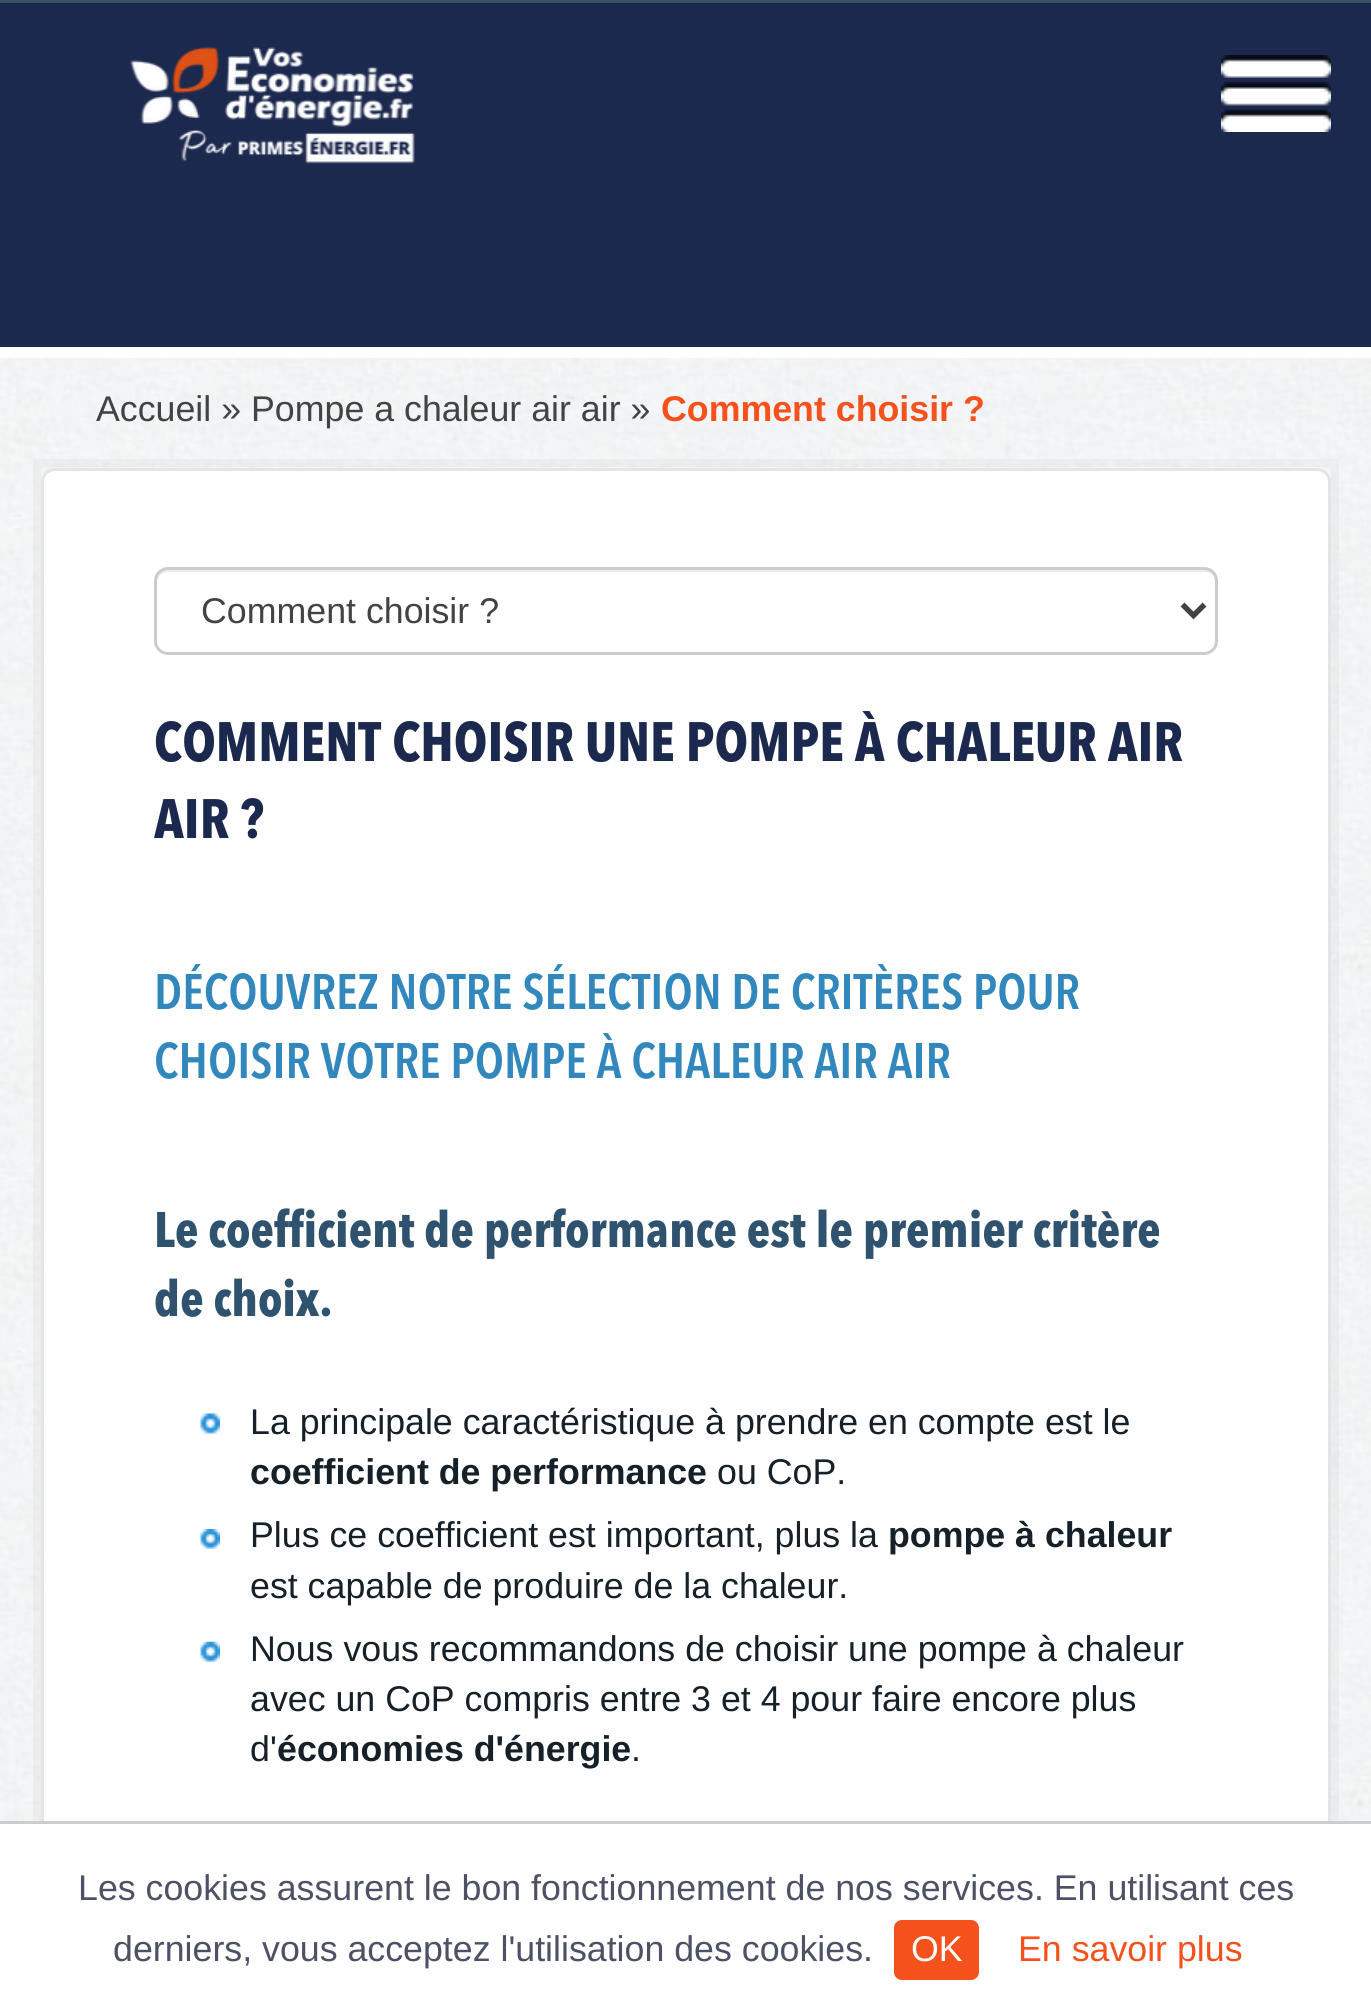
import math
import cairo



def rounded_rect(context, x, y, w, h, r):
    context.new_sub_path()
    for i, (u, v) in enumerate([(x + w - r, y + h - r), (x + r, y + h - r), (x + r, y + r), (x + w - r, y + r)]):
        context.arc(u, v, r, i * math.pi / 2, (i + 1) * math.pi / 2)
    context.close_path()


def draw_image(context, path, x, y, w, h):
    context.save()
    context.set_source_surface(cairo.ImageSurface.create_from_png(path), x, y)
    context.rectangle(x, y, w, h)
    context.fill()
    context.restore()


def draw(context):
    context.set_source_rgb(1, 1, 1)
    context.paint()
    draw_image(context, "images/1.png", 0, 358, 1371, 1463)
    context.set_source_rgb(28 / 255, 41 / 255, 78 / 255)
    context.rectangle(0, 3, 1371, 344)
    context.fill()
    context.set_source_rgb(57 / 255, 81 / 255, 101 / 255)
    context.rectangle(0, 0, 1371, 3)
    context.fill()
    draw_image(context, "images/2.png", 130, 47, 285, 117)
    draw_image(context, "images/3.png", 1221, 55, 110, 77)
    context.rectangle(37, 463, 1298, 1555)
    context.set_source_rgba(0, 0, 0, 0.03)
    context.set_line_width(8)
    context.stroke()
    context.set_source_rgb(1, 1, 1)
    rounded_rect(context, 42.5, 469.5, 1287, 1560, 12.5)
    context.fill_preserve()
    context.set_source_rgb(229 / 255, 229 / 255, 229 / 255)
    context.set_line_width(3)
    context.stroke()
    context.set_source_rgb(236 / 255, 236 / 255, 236 / 255)
    context.new_path()
    context.move_to(168, 572)
    context.line_to(1204, 572)
    context.curve_to(1211, 572, 1216, 577, 1216, 583)
    context.curve_to(1216, 576, 1213, 569, 1205, 569)
    context.line_to(168, 569)
    context.curve_to(160, 569, 157, 576, 157, 583)
    context.curve_to(157, 577, 162, 572, 168, 572)
    context.close_path()
    context.fill()
    rounded_rect(context, 155.5, 568.5, 1061, 85, 12.5)
    context.set_source_rgb(204 / 255, 204 / 255, 204 / 255)
    context.stroke()
    context.new_path()
    context.move_to(1182.5, 604.5)
    context.line_to(1193.5, 615.5)
    context.line_to(1204.5, 604.5)
    context.set_source_rgb(66 / 255, 67 / 255, 68 / 255)
    context.set_line_width(5.5)
    context.stroke()
    draw_image(context, "images/4.png", 200, 1413, 20, 22)
    draw_image(context, "images/5.png", 200, 1529, 20, 20)
    draw_image(context, "images/6.png", 200, 1641, 20, 22)
    context.set_source_rgb(1, 1, 1)
    context.rectangle(33, 1824, 1306, 190)
    context.fill()
    context.set_source_rgb(204 / 255, 204 / 255, 204 / 255)
    context.rectangle(0, 1821, 1371, 3)
    context.fill()
    context.set_source_rgb(245 / 255, 81 / 255, 29 / 255)
    rounded_rect(context, 894, 1920, 85, 60, 8)
    context.fill()
    context.select_font_face("Liberation Sans")
    context.set_font_size(35.75)
    context.set_source_rgb(66 / 255, 67 / 255, 68 / 255)
    context.move_to(96, 421)
    context.show_text("Accueil » Pompe a chaleur air air »")
    context.select_font_face("Liberation Sans", cairo.FontSlant.NORMAL, cairo.FontWeight.BOLD)
    context.set_source_rgb(245 / 255, 81 / 255, 29 / 255)
    context.move_to(661, 421)
    context.show_text("Comment choisir ?")
    context.select_font_face("Liberation Sans")
    context.set_source_rgb(66 / 255, 67 / 255, 68 / 255)
    context.move_to(201, 623)
    context.show_text("Comment choisir ?")
    context.select_font_face("Avenir Next", cairo.FontSlant.NORMAL, cairo.FontWeight.BOLD)
    context.set_font_size(55)
    context.set_source_rgb(28 / 255, 41 / 255, 78 / 255)
    context.move_to(154, 761)
    context.show_text("COMMENT CHOISIR UNE POMPE À CHALEUR AIR")
    context.move_to(154, 838)
    context.show_text("AIR ?")
    context.select_font_face("Avenir Next SemiBold")
    context.set_font_size(49.5)
    context.set_source_rgb(50 / 255, 135 / 255, 189 / 255)
    context.move_to(154, 1009)
    context.show_text("DÉCOUVREZ NOTRE SÉLECTION DE CRITÈRES POUR")
    context.move_to(154, 1078)
    context.show_text("CHOISIR VOTRE POMPE À CHALEUR AIR AIR")
    context.select_font_face("Avenir Next", cairo.FontSlant.NORMAL, cairo.FontWeight.BOLD)
    context.set_source_rgb(47 / 255, 82 / 255, 110 / 255)
    context.move_to(154, 1247)
    context.show_text("Le coefficient de performance est le premier critère")
    context.move_to(154, 1316)
    context.show_text("de choix.")
    context.select_font_face("Liberation Sans")
    context.set_font_size(35.75)
    context.set_source_rgb(22 / 255, 32 / 255, 41 / 255)
    context.move_to(250, 1434)
    context.show_text("La principale caractéristique à prendre en compte est le")
    context.select_font_face("Liberation Sans", cairo.FontSlant.NORMAL, cairo.FontWeight.BOLD)
    context.move_to(250, 1484)
    context.show_text("coefficient de performance")
    context.select_font_face("Liberation Sans")
    context.move_to(717, 1484)
    context.show_text("ou CoP.")
    context.move_to(250, 1547)
    context.show_text("Plus ce coefficient est important, plus la")
    context.select_font_face("Liberation Sans", cairo.FontSlant.NORMAL, cairo.FontWeight.BOLD)
    context.move_to(888, 1547)
    context.show_text("pompe à chaleur")
    context.select_font_face("Liberation Sans")
    context.move_to(250, 1598)
    context.show_text("est capable de produire de la chaleur.")
    context.move_to(250, 1661)
    context.show_text("Nous vous recommandons de choisir une pompe à chaleur")
    context.move_to(250, 1711)
    context.show_text("avec un CoP compris entre 3 et 4 pour faire encore plus")
    context.move_to(250, 1761)
    context.show_text("d'")
    context.select_font_face("Liberation Sans", cairo.FontSlant.NORMAL, cairo.FontWeight.BOLD)
    context.move_to(277, 1761)
    context.show_text("économies d'énergie")
    context.select_font_face("Liberation Sans")
    context.move_to(631, 1761)
    context.show_text(".")
    context.set_source_rgb(76 / 255, 81 / 255, 101 / 255)
    context.move_to(78, 1900)
    context.show_text("Les cookies assurent le bon fonctionnement de nos services. En utilisant ces")
    context.move_to(113, 1961)
    context.show_text("derniers, vous acceptez l'utilisation des cookies.")
    context.set_source_rgb(1, 1, 1)
    context.move_to(911, 1961)
    context.show_text("OK")
    context.set_source_rgb(245 / 255, 81 / 255, 29 / 255)
    context.move_to(1018, 1961)
    context.show_text("En savoir plus")


surface = cairo.ImageSurface(cairo.Format.RGB24, 1371, 2014)
context = cairo.Context(surface)
options = cairo.FontOptions()
options.set_hint_metrics(cairo.HintMetrics.OFF)
options.set_hint_style(cairo.HintStyle.NONE)
context.set_font_options(options)
context.set_miter_limit(4)
draw(context)
surface.write_to_png("out.png")
